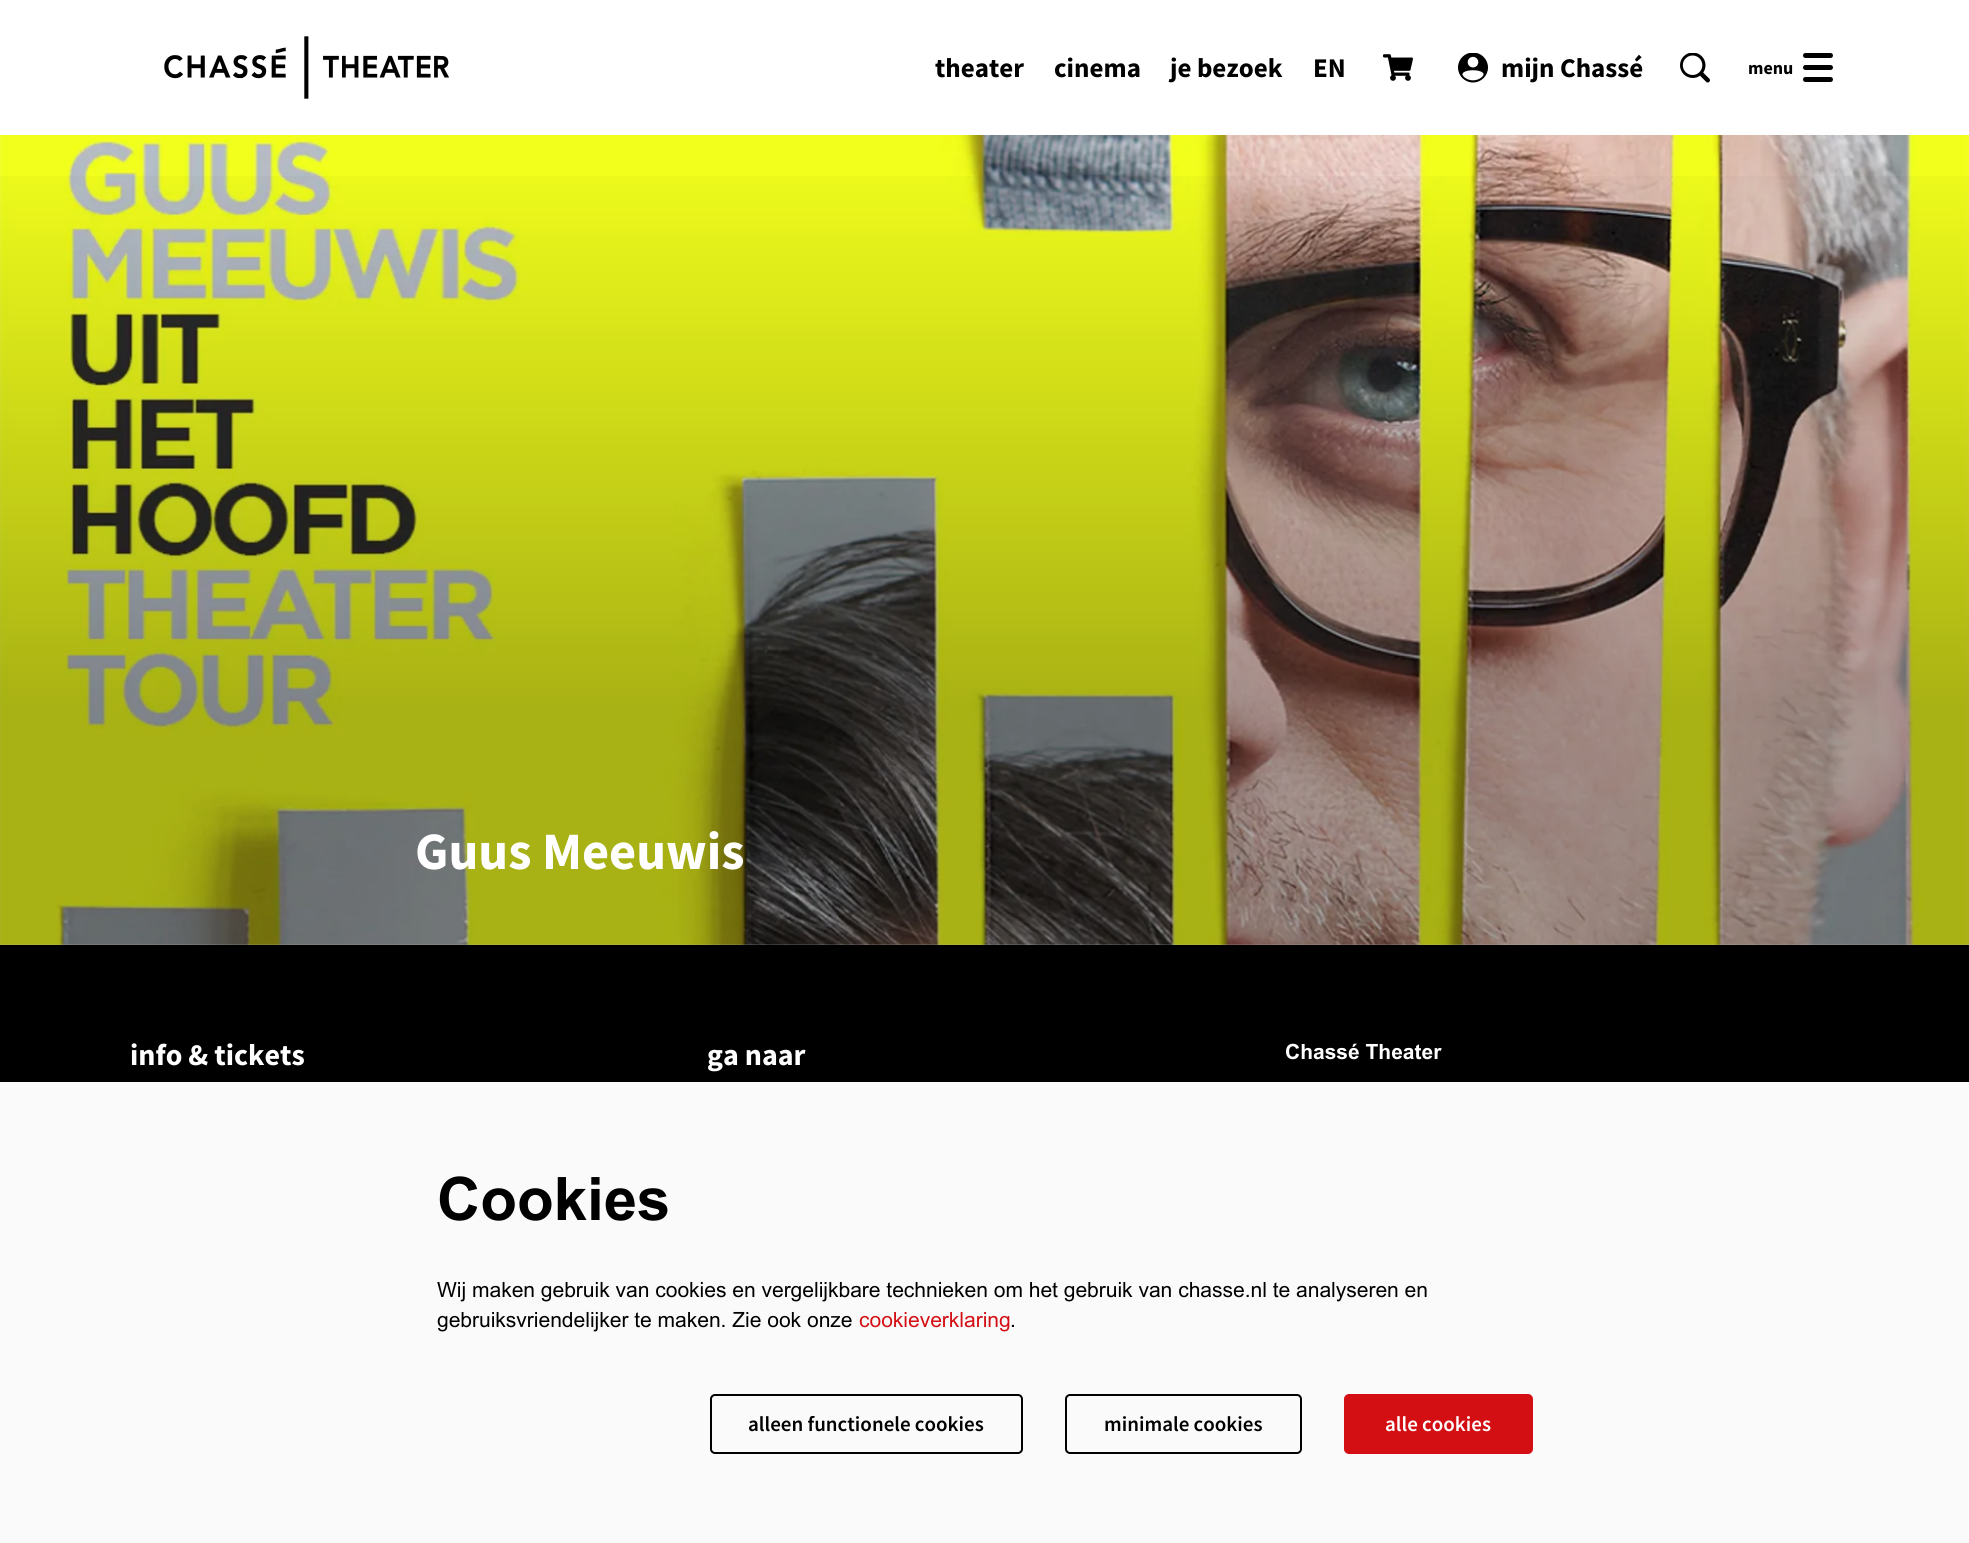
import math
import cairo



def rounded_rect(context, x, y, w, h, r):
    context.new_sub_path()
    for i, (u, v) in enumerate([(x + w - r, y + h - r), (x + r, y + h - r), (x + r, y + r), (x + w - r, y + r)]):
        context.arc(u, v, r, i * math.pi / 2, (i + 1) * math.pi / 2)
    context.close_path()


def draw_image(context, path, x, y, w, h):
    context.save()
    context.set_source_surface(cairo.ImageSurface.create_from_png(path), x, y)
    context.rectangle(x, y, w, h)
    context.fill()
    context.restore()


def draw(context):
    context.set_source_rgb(1, 1, 1)
    context.paint()
    draw_image(context, "images/1.png", 164, 36, 286, 63)
    draw_image(context, "images/2.png", 1383, 54, 30, 27)
    draw_image(context, "images/3.png", 1458, 53, 30, 30)
    draw_image(context, "images/4.png", 1680, 53, 30, 30)
    context.set_source_rgb(0, 0, 0)
    rounded_rect(context, 1803, 53, 30, 5, 2.5)
    context.fill()
    rounded_rect(context, 1803, 65, 30, 5, 2.5)
    context.fill()
    rounded_rect(context, 1803, 77, 30, 5, 2.5)
    context.fill()
    draw_image(context, "images/5.png", 0, 135, 1969, 810)
    gradient = cairo.LinearGradient(985, 945, 985, 135)
    gradient.add_color_stop_rgba(0, 0, 0, 0, 0.3)
    gradient.add_color_stop_rgba(0.3, 0, 0, 0, 0.3)
    gradient.add_color_stop_rgba(1, 0, 0, 0, 0)
    context.set_source(gradient)
    context.rectangle(0, 176, 1969, 769)
    context.fill()
    context.set_source_rgb(0, 0, 0)
    context.rectangle(0, 945, 1969, 137)
    context.fill()
    context.set_source_rgb(250 / 255, 250 / 255, 250 / 255)
    context.rectangle(0, 1082, 1969, 461)
    context.fill()
    rounded_rect(context, 711, 1395, 311, 58, 4)
    context.set_source_rgb(0, 0, 0)
    context.stroke()
    rounded_rect(context, 1066, 1395, 235, 58, 4)
    context.stroke()
    context.set_source_rgb(212 / 255, 15 / 255, 20 / 255)
    rounded_rect(context, 1345, 1395, 187, 58, 4)
    context.fill_preserve()
    context.stroke()
    context.select_font_face("Source Sans Pro", cairo.FontSlant.NORMAL, cairo.FontWeight.BOLD)
    context.set_font_size(27)
    context.set_source_rgb(0, 0, 0)
    context.move_to(935, 77)
    context.show_text("theater")
    context.move_to(1054, 77)
    context.show_text("cinema")
    context.move_to(1170, 77)
    context.show_text("je bezoek")
    context.move_to(1313, 77)
    context.show_text("EN")
    context.move_to(1501, 77)
    context.show_text("mijn Chassé")
    context.set_font_size(18)
    context.move_to(1748, 74)
    context.show_text("menu")
    context.set_font_size(52.5)
    context.set_source_rgb(1, 1, 1)
    context.move_to(415, 869)
    context.show_text("Guus Meeuwis")
    context.set_font_size(30)
    context.move_to(130, 1065)
    context.show_text("info & tickets")
    context.move_to(707, 1065)
    context.show_text("ga naar")
    context.select_font_face("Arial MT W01", cairo.FontSlant.NORMAL, cairo.FontWeight.BOLD)
    context.set_font_size(21)
    context.move_to(1285, 1059)
    context.show_text("Chassé Theater")
    context.set_font_size(60)
    context.set_source_rgb(0, 0, 0)
    context.move_to(437, 1220)
    context.show_text("Cookies")
    context.select_font_face("Arial MT W01")
    context.set_font_size(21)
    context.move_to(437, 1297)
    context.show_text("Wij maken gebruik van cookies en vergelijkbare technieken om het gebruik van chasse.nl te analyseren en")
    context.move_to(437, 1327)
    context.show_text("gebruiksvriendelijker te maken. Zie ook onze")
    context.set_source_rgb(212 / 255, 15 / 255, 20 / 255)
    context.move_to(859, 1327)
    context.show_text("cookieverklaring")
    context.set_source_rgb(0, 0, 0)
    context.move_to(1010, 1327)
    context.show_text(".")
    context.select_font_face("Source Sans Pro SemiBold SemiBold")
    context.move_to(748, 1431)
    context.show_text("alleen functionele cookies")
    context.move_to(1104, 1431)
    context.show_text("minimale cookies")
    context.set_source_rgb(1, 1, 1)
    context.move_to(1385, 1431)
    context.show_text("alle cookies")


surface = cairo.ImageSurface(cairo.Format.RGB24, 1969, 1543)
context = cairo.Context(surface)
options = cairo.FontOptions()
options.set_hint_metrics(cairo.HintMetrics.OFF)
options.set_hint_style(cairo.HintStyle.NONE)
context.set_font_options(options)
context.set_miter_limit(4)
draw(context)
surface.write_to_png("out.png")
